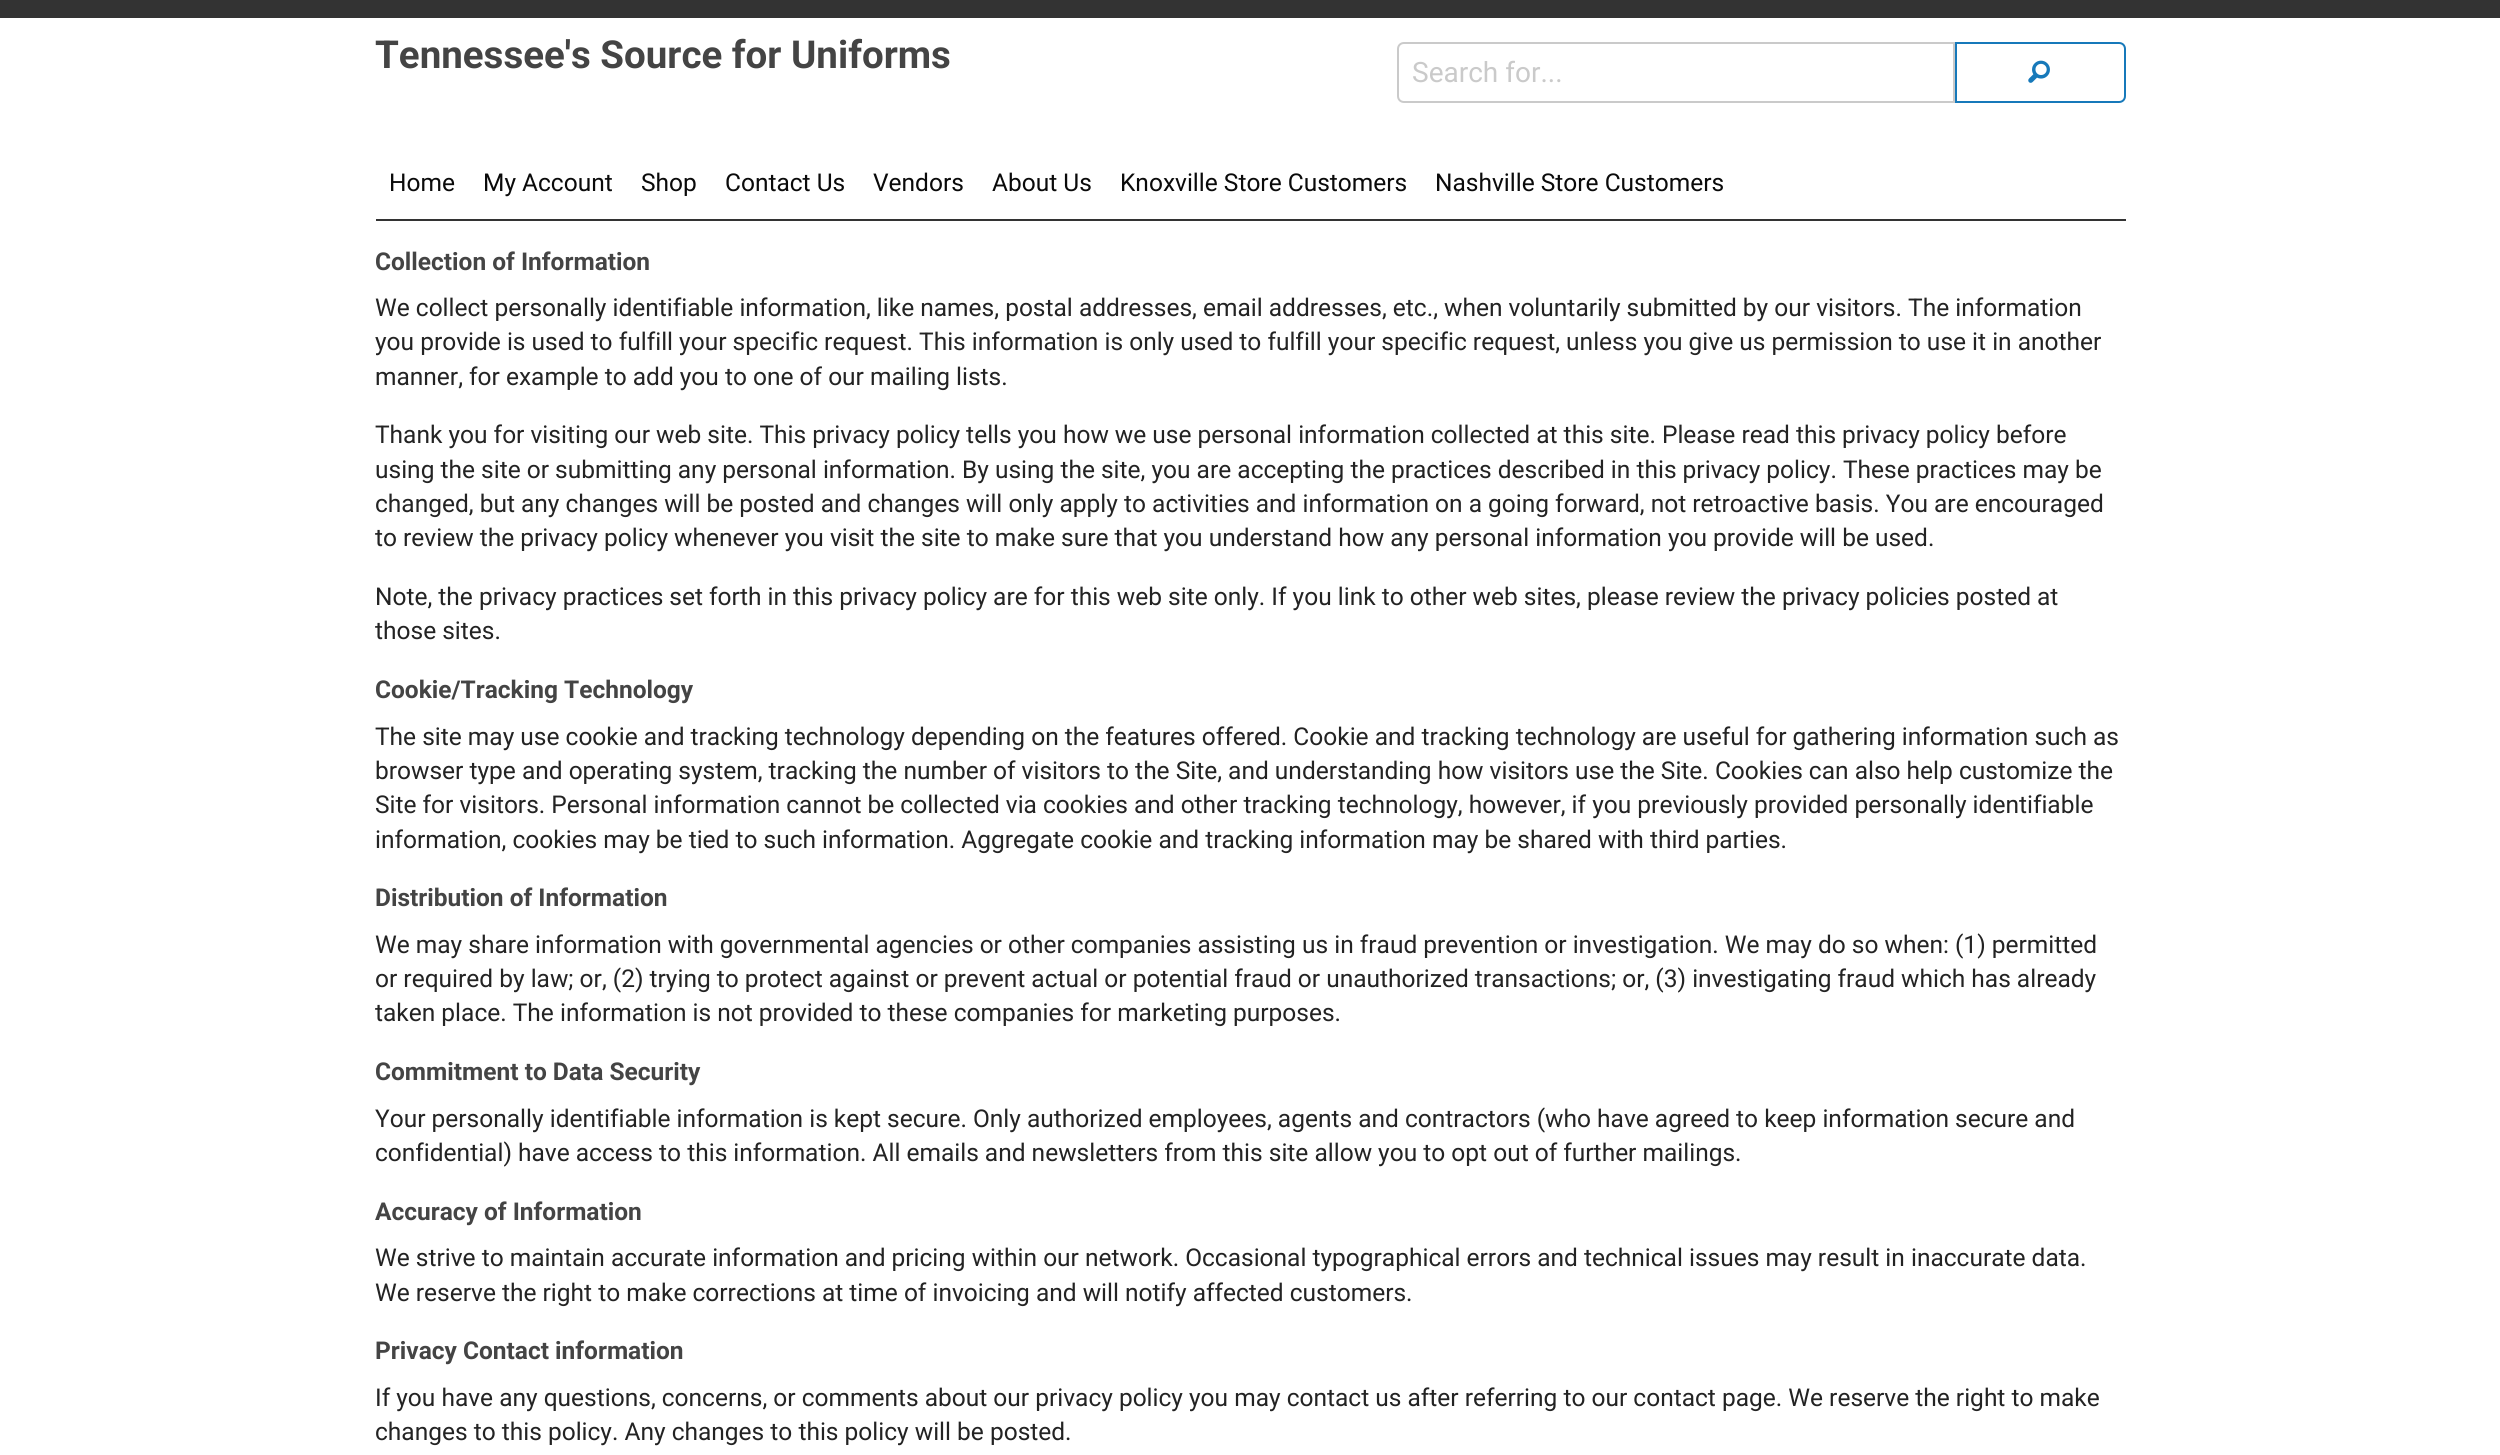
import math
import cairo



def draw_image(context, path, x, y, w, h):
    context.save()
    context.set_source_surface(cairo.ImageSurface.create_from_png(path), x, y)
    context.rectangle(x, y, w, h)
    context.fill()
    context.restore()


def draw(context):
    context.set_source_rgb(1, 1, 1)
    context.paint()
    context.set_source_rgb(51 / 255, 51 / 255, 51 / 255)
    context.rectangle(0, 0, 2500, 18)
    context.fill()
    context.new_path()
    context.move_to(1404, 43)
    context.line_to(1954, 43)
    context.line_to(1954, 102)
    context.line_to(1404, 102)
    context.curve_to(1400.5, 102, 1398, 99.5, 1398, 96)
    context.line_to(1398, 49)
    context.curve_to(1398, 45.5, 1400.5, 43, 1404, 43)
    context.close_path()
    context.set_source_rgb(202 / 255, 202 / 255, 202 / 255)
    context.stroke()
    context.new_path()
    context.move_to(1956, 43)
    context.line_to(2119, 43)
    context.curve_to(2122.5, 43, 2125, 45.5, 2125, 49)
    context.line_to(2125, 96)
    context.curve_to(2125, 99.5, 2122.5, 102, 2119, 102)
    context.line_to(1956, 102)
    context.close_path()
    context.set_source_rgb(23 / 255, 121 / 255, 186 / 255)
    context.stroke()
    draw_image(context, "images/1.png", 2028, 60, 22, 23)
    context.set_source_rgb(51 / 255, 51 / 255, 51 / 255)
    context.rectangle(376, 219, 1750, 2)
    context.fill()
    context.select_font_face("Roboto", cairo.FontSlant.NORMAL, cairo.FontWeight.BOLD)
    context.set_font_size(38.5)
    context.set_source_rgb(68 / 255, 68 / 255, 68 / 255)
    context.move_to(375, 68)
    context.show_text("Tennessee's Source for Uniforms")
    context.select_font_face("Roboto")
    context.set_font_size(28)
    context.set_source_rgb(202 / 255, 202 / 255, 202 / 255)
    context.move_to(1412, 82)
    context.show_text("Search for...")
    context.set_font_size(24.5)
    context.set_source_rgb(10 / 255, 10 / 255, 10 / 255)
    context.move_to(389, 191)
    context.show_text("Home")
    context.move_to(483, 191)
    context.show_text("My Account")
    context.move_to(641, 191)
    context.show_text("Shop")
    context.move_to(725, 191)
    context.show_text("Contact Us")
    context.move_to(873, 191)
    context.show_text("Vendors")
    context.move_to(992, 191)
    context.show_text("About Us")
    context.move_to(1120, 191)
    context.show_text("Knoxville Store Customers")
    context.move_to(1435, 191)
    context.show_text("Nashville Store Customers")
    context.select_font_face("Roboto", cairo.FontSlant.NORMAL, cairo.FontWeight.BOLD)
    context.set_source_rgb(68 / 255, 68 / 255, 68 / 255)
    context.move_to(375, 270)
    context.show_text("Collection of Information")
    context.select_font_face("Roboto")
    context.set_source_rgb(35 / 255, 35 / 255, 35 / 255)
    context.move_to(375, 316)
    context.show_text("We collect personally identifiable information, like names, postal addresses, email addresses, etc., when voluntarily submitted by our visitors. The information")
    context.move_to(375, 350)
    context.show_text("you provide is used to fulfill your specific request. This information is only used to fulfill your specific request, unless you give us permission to use it in another")
    context.move_to(375, 385)
    context.show_text("manner, for example to add you to one of our mailing lists.")
    context.move_to(375, 443)
    context.show_text("Thank you for visiting our web site. This privacy policy tells you how we use personal information collected at this site. Please read this privacy policy before")
    context.move_to(375, 478)
    context.show_text("using the site or submitting any personal information. By using the site, you are accepting the practices described in this privacy policy. These practices may be")
    context.move_to(375, 512)
    context.show_text("changed, but any changes will be posted and changes will only apply to activities and information on a going forward, not retroactive basis. You are encouraged")
    context.move_to(375, 546)
    context.show_text("to review the privacy policy whenever you visit the site to make sure that you understand how any personal information you provide will be used.")
    context.move_to(375, 605)
    context.show_text("Note, the privacy practices set forth in this privacy policy are for this web site only. If you link to other web sites, please review the privacy policies posted at")
    context.move_to(375, 639)
    context.show_text("those sites.")
    context.select_font_face("Roboto", cairo.FontSlant.NORMAL, cairo.FontWeight.BOLD)
    context.set_source_rgb(68 / 255, 68 / 255, 68 / 255)
    context.move_to(375, 698)
    context.show_text("Cookie/Tracking Technology")
    context.select_font_face("Roboto")
    context.set_source_rgb(35 / 255, 35 / 255, 35 / 255)
    context.move_to(375, 745)
    context.show_text("The site may use cookie and tracking technology depending on the features offered. Cookie and tracking technology are useful for gathering information such as")
    context.move_to(375, 779)
    context.show_text("browser type and operating system, tracking the number of visitors to the Site, and understanding how visitors use the Site. Cookies can also help customize the")
    context.move_to(375, 813)
    context.show_text("Site for visitors. Personal information cannot be collected via cookies and other tracking technology, however, if you previously provided personally identifiable")
    context.move_to(375, 848)
    context.show_text("information, cookies may be tied to such information. Aggregate cookie and tracking information may be shared with third parties.")
    context.select_font_face("Roboto", cairo.FontSlant.NORMAL, cairo.FontWeight.BOLD)
    context.set_source_rgb(68 / 255, 68 / 255, 68 / 255)
    context.move_to(375, 906)
    context.show_text("Distribution of Information")
    context.select_font_face("Roboto")
    context.set_source_rgb(35 / 255, 35 / 255, 35 / 255)
    context.move_to(375, 953)
    context.show_text("We may share information with governmental agencies or other companies assisting us in fraud prevention or investigation. We may do so when: (1) permitted")
    context.move_to(375, 987)
    context.show_text("or required by law; or, (2) trying to protect against or prevent actual or potential fraud or unauthorized transactions; or, (3) investigating fraud which has already")
    context.move_to(375, 1021)
    context.show_text("taken place. The information is not provided to these companies for marketing purposes.")
    context.select_font_face("Roboto", cairo.FontSlant.NORMAL, cairo.FontWeight.BOLD)
    context.set_source_rgb(68 / 255, 68 / 255, 68 / 255)
    context.move_to(375, 1080)
    context.show_text("Commitment to Data Security")
    context.select_font_face("Roboto")
    context.set_source_rgb(35 / 255, 35 / 255, 35 / 255)
    context.move_to(375, 1127)
    context.show_text("Your personally identifiable information is kept secure. Only authorized employees, agents and contractors (who have agreed to keep information secure and")
    context.move_to(375, 1161)
    context.show_text("confidential) have access to this information. All emails and newsletters from this site allow you to opt out of further mailings.")
    context.select_font_face("Roboto", cairo.FontSlant.NORMAL, cairo.FontWeight.BOLD)
    context.set_source_rgb(68 / 255, 68 / 255, 68 / 255)
    context.move_to(375, 1220)
    context.show_text("Accuracy of Information")
    context.select_font_face("Roboto")
    context.set_source_rgb(35 / 255, 35 / 255, 35 / 255)
    context.move_to(375, 1266)
    context.show_text("We strive to maintain accurate information and pricing within our network. Occasional typographical errors and technical issues may result in inaccurate data.")
    context.move_to(375, 1301)
    context.show_text("We reserve the right to make corrections at time of invoicing and will notify affected customers.")
    context.select_font_face("Roboto", cairo.FontSlant.NORMAL, cairo.FontWeight.BOLD)
    context.set_source_rgb(68 / 255, 68 / 255, 68 / 255)
    context.move_to(375, 1359)
    context.show_text("Privacy Contact information")
    context.select_font_face("Roboto")
    context.set_source_rgb(35 / 255, 35 / 255, 35 / 255)
    context.move_to(375, 1406)
    context.show_text("If you have any questions, concerns, or comments about our privacy policy you may contact us after referring to our contact page. We reserve the right to make")
    context.move_to(375, 1440)
    context.show_text("changes to this policy. Any changes to this policy will be posted.")


surface = cairo.ImageSurface(cairo.Format.RGB24, 2500, 1455)
context = cairo.Context(surface)
options = cairo.FontOptions()
options.set_hint_metrics(cairo.HintMetrics.OFF)
options.set_hint_style(cairo.HintStyle.NONE)
context.set_font_options(options)
context.set_miter_limit(4)
draw(context)
surface.write_to_png("out.png")
